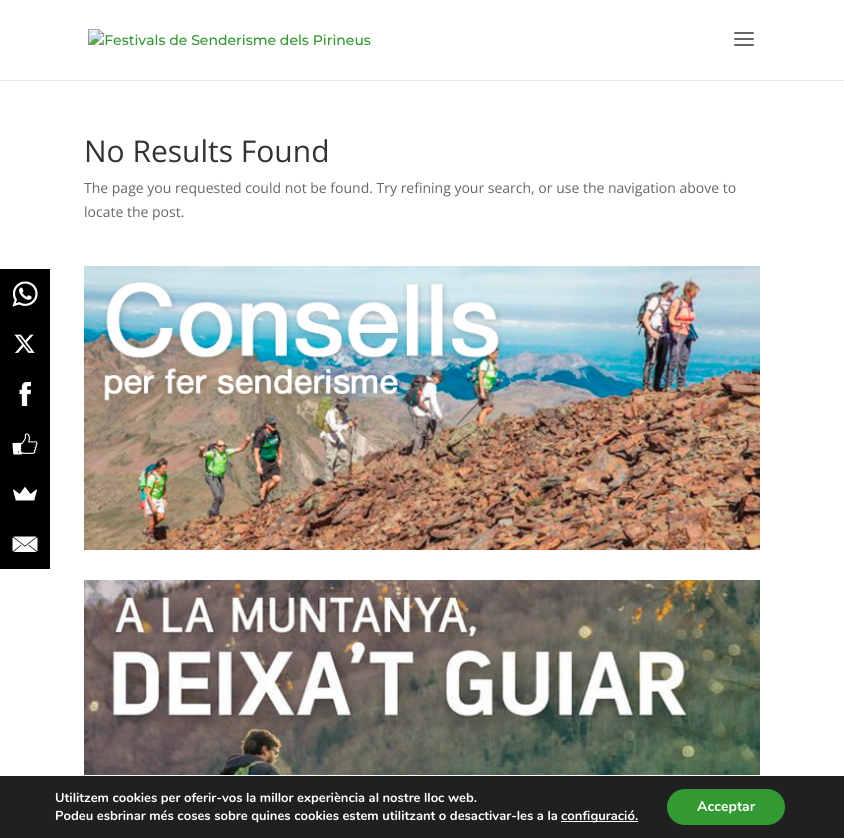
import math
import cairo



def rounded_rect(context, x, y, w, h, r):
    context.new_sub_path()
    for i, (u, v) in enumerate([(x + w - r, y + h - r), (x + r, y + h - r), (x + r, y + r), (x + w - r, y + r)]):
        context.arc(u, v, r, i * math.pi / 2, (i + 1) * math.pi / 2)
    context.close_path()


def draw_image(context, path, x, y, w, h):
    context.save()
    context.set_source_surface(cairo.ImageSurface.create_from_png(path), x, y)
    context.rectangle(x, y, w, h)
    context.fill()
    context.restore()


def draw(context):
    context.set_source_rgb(1, 1, 1)
    context.paint()
    context.set_source_rgb(230 / 255, 230 / 255, 230 / 255)
    context.rectangle(0, 80, 844, 1)
    context.fill()
    draw_image(context, "images/1.png", 88, 29, 283, 16)
    draw_image(context, "images/2.png", 734, 32, 20, 14)
    draw_image(context, "images/3.png", 84, 266, 676, 284)
    draw_image(context, "images/4.png", 84, 580, 676, 195)
    context.set_source_rgb(0, 0, 0)
    context.rectangle(0, 269, 50, 300)
    context.fill()
    draw_image(context, "images/5.png", 12, 281, 26, 26)
    draw_image(context, "images/6.png", 14, 334, 21, 19)
    draw_image(context, "images/7.png", 19, 382, 12, 24)
    draw_image(context, "images/8.png", 12, 433, 26, 22)
    draw_image(context, "images/9.png", 13, 487, 24, 14)
    draw_image(context, "images/10.png", 12, 536, 26, 16)
    context.set_source_rgb(32 / 255, 32 / 255, 32 / 255)
    context.rectangle(0, 776, 844, 62)
    context.fill()
    context.set_source_rgb(1, 1, 1)
    context.rectangle(561, 821, 77, 1)
    context.fill()
    context.set_source_rgb(51 / 255, 153 / 255, 51 / 255)
    rounded_rect(context, 667, 789, 118, 36, 18)
    context.fill()
    context.select_font_face("Open Sans")
    context.set_font_size(30)
    context.set_source_rgb(51 / 255, 51 / 255, 51 / 255)
    context.move_to(84, 162)
    context.show_text("No Results Found")
    context.set_font_size(14)
    context.set_source_rgb(102 / 255, 102 / 255, 102 / 255)
    context.move_to(84, 193)
    context.show_text("The page you requested could not be found. Try refining your search, or use the navigation above to")
    context.move_to(84, 217)
    context.show_text("locate the post.")
    context.select_font_face("Nunito", cairo.FontSlant.NORMAL, cairo.FontWeight.BOLD)
    context.set_font_size(13)
    context.set_source_rgb(1, 1, 1)
    context.move_to(55, 802)
    context.show_text("Utilitzem cookies per oferir-vos la millor experiència al nostre lloc web.")
    context.move_to(55, 820)
    context.show_text("Podeu esbrinar més coses sobre quines cookies estem utilitzant o desactivar-les a la")
    context.move_to(561, 820)
    context.show_text("configuració.")
    context.set_font_size(14)
    context.move_to(697, 811)
    context.show_text("Acceptar")


surface = cairo.ImageSurface(cairo.Format.RGB24, 844, 838)
context = cairo.Context(surface)
options = cairo.FontOptions()
options.set_hint_metrics(cairo.HintMetrics.OFF)
options.set_hint_style(cairo.HintStyle.NONE)
context.set_font_options(options)
context.set_miter_limit(4)
draw(context)
surface.write_to_png("out.png")
